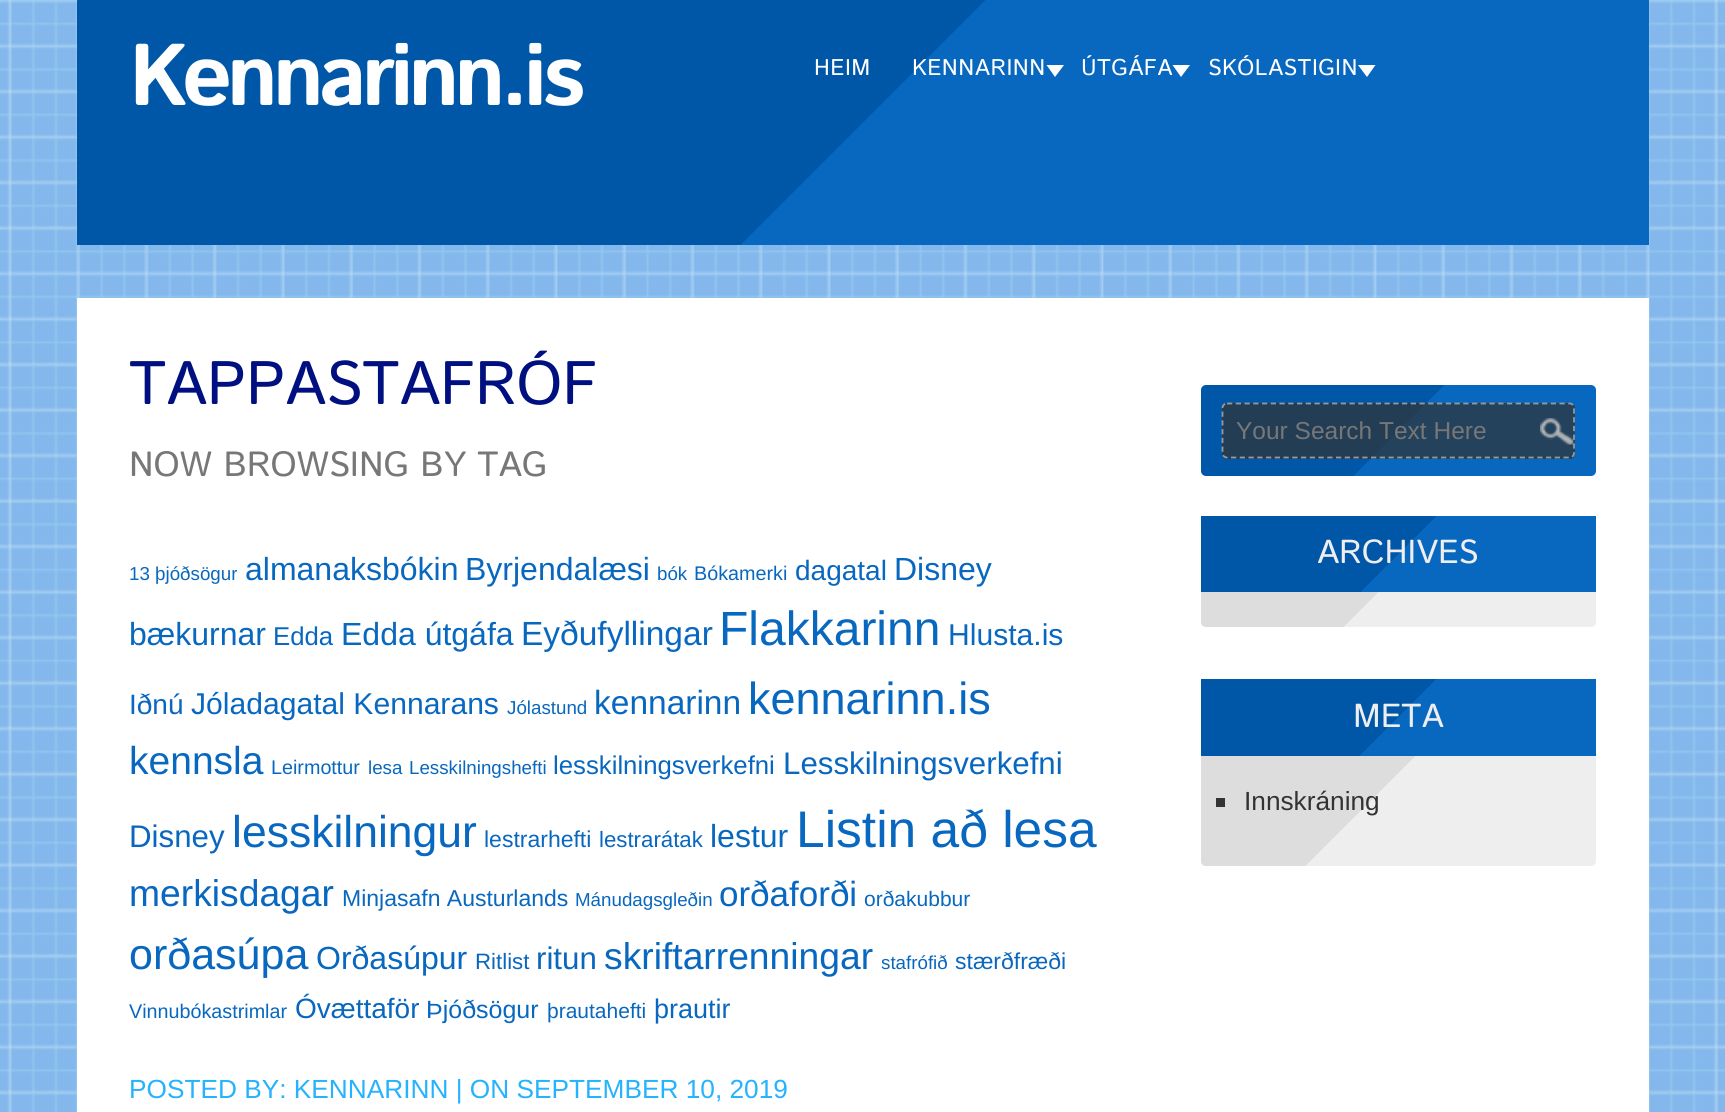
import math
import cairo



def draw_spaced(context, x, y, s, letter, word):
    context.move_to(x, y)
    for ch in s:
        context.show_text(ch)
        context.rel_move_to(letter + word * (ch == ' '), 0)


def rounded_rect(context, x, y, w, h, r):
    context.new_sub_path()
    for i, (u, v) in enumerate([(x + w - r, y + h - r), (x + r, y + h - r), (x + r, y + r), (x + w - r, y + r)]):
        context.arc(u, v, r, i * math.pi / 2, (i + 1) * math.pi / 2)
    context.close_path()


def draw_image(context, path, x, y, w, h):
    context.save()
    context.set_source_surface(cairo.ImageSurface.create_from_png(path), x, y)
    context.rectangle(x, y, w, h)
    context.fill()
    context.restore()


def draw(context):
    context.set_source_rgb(1, 1, 1)
    context.paint()
    draw_image(context, "images/1.png", 0, 0, 1725, 1112)
    gradient = cairo.LinearGradient(1317, 577, 409, -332)
    gradient.add_color_stop_rgba(0.5, 8 / 255, 103 / 255, 191 / 255, 1)
    gradient.add_color_stop_rgba(0.5, 1 / 255, 87 / 255, 167 / 255, 1)
    context.set_source(gradient)
    context.rectangle(77, 0, 1572, 245)
    context.fill()
    context.set_source_rgb(1, 1, 1)
    context.new_path()
    context.move_to(1046.5, 65)
    context.line_to(1064, 65)
    context.line_to(1055, 77)
    context.close_path()
    context.fill()
    context.new_path()
    context.move_to(1172.5, 65)
    context.line_to(1190, 65)
    context.line_to(1181, 77)
    context.close_path()
    context.fill()
    context.new_path()
    context.move_to(1358, 65)
    context.line_to(1375.5, 65)
    context.line_to(1367, 77)
    context.close_path()
    context.fill()
    context.rectangle(77, 298, 1572, 814)
    context.fill()
    gradient = cairo.LinearGradient(1520, 552, 1277, 309)
    gradient.add_color_stop_rgba(0.5, 8 / 255, 103 / 255, 191 / 255, 1)
    gradient.add_color_stop_rgba(0.5, 1 / 255, 87 / 255, 167 / 255, 1)
    context.set_source(gradient)
    rounded_rect(context, 1201, 385, 395, 91, 5)
    context.fill()
    context.set_source_rgba(51 / 255, 51 / 255, 51 / 255, 0.7)
    rounded_rect(context, 1222, 403, 353, 56, 5)
    context.fill()
    draw_image(context, "images/2.png", 1540, 418, 34, 27)
    context.new_path()
    context.move_to(1227, 403.5)
    context.line_to(1570, 403.5)
    context.curve_to(1572, 403.5, 1574, 405.5, 1574, 408)
    context.line_to(1574, 453)
    context.curve_to(1574, 455.5, 1572, 457.5, 1570, 457.5)
    context.line_to(1227, 457.5)
    context.curve_to(1224.5, 457.5, 1222.5, 455.5, 1222.5, 453)
    context.line_to(1222.5, 408)
    context.curve_to(1222.5, 405.5, 1224.5, 403.5, 1227, 403.5)
    context.close_path()
    context.set_source_rgb(153 / 255, 153 / 255, 153 / 255)
    context.set_line_width(1.8)
    context.set_dash([5.25, 3.5])
    context.stroke()
    gradient = cairo.LinearGradient(1525, 698, 1272, 445)
    gradient.add_color_stop_rgba(0.5, 238 / 255, 238 / 255, 238 / 255, 1)
    gradient.add_color_stop_rgba(0.5, 221 / 255, 221 / 255, 221 / 255, 1)
    context.set_source(gradient)
    context.new_path()
    context.move_to(1201, 516)
    context.line_to(1596, 516)
    context.line_to(1596, 622)
    context.curve_to(1596, 625, 1594, 627, 1591, 627)
    context.line_to(1206, 627)
    context.curve_to(1203, 627, 1201, 625, 1201, 622)
    context.close_path()
    context.fill()
    gradient = cairo.LinearGradient(1516, 672, 1281, 436)
    gradient.add_color_stop_rgba(0.5, 8 / 255, 103 / 255, 191 / 255, 1)
    gradient.add_color_stop_rgba(0.5, 1 / 255, 87 / 255, 167 / 255, 1)
    context.set_source(gradient)
    context.rectangle(1201, 516, 395, 76)
    context.fill()
    gradient = cairo.LinearGradient(1544, 918, 1253, 627)
    gradient.add_color_stop_rgba(0.5, 238 / 255, 238 / 255, 238 / 255, 1)
    gradient.add_color_stop_rgba(0.5, 221 / 255, 221 / 255, 221 / 255, 1)
    context.set_source(gradient)
    context.new_path()
    context.move_to(1201, 679)
    context.line_to(1596, 679)
    context.line_to(1596, 861)
    context.curve_to(1596, 864, 1594, 866, 1591, 866)
    context.line_to(1206, 866)
    context.curve_to(1203, 866, 1201, 864, 1201, 861)
    context.close_path()
    context.fill()
    gradient = cairo.LinearGradient(1516, 836, 1280, 599)
    gradient.add_color_stop_rgba(0.5, 8 / 255, 103 / 255, 191 / 255, 1)
    gradient.add_color_stop_rgba(0.5, 1 / 255, 87 / 255, 167 / 255, 1)
    context.set_source(gradient)
    context.rectangle(1201, 679, 395, 77)
    context.fill()
    context.set_source_rgb(51 / 255, 51 / 255, 51 / 255)
    context.rectangle(1216, 798, 9, 9)
    context.fill()
    context.select_font_face("Istok Web", cairo.FontSlant.NORMAL, cairo.FontWeight.BOLD)
    context.set_font_size(87.5)
    context.set_source_rgb(1, 1, 1)
    draw_spaced(context, 129, 105, "Kennarinn.is", -5.25, 0)
    context.select_font_face("Istok Web")
    context.set_font_size(22.75)
    draw_spaced(context, 814, 75, "HEIM", 0.5, 0)
    draw_spaced(context, 912, 75, "KENNARINN", 0.5, 0)
    draw_spaced(context, 1081, 75, "ÚTGÁFA", 0.5, 0)
    draw_spaced(context, 1208, 75, "SKÓLASTIGIN", 0.5, 0)
    context.set_font_size(61.25)
    context.set_source_rgb(1 / 255, 16 / 255, 128 / 255)
    context.move_to(129, 404)
    context.show_text("TAPPASTAFRÓF")
    context.set_font_size(35)
    context.set_source_rgb(119 / 255, 119 / 255, 119 / 255)
    context.move_to(129, 476)
    context.show_text("NOW BROWSING BY TAG")
    context.select_font_face("Liberation Sans")
    context.set_font_size(18.75)
    context.set_source_rgb(8 / 255, 103 / 255, 191 / 255)
    context.move_to(129, 580)
    context.show_text("13 þjóðsögur")
    context.set_font_size(32)
    context.move_to(245, 580)
    context.show_text("almanaksbókin")
    context.move_to(465, 580)
    context.show_text("Byrjendalæsi")
    context.set_font_size(18.75)
    context.move_to(657, 580)
    context.show_text("bók")
    context.set_font_size(19.75)
    context.move_to(694, 580)
    context.show_text("Bókamerki")
    context.set_font_size(28)
    context.move_to(795, 580)
    context.show_text("dagatal")
    context.set_font_size(32)
    context.move_to(894, 580)
    context.show_text("Disney")
    context.move_to(129, 645)
    context.show_text("bækurnar")
    context.set_font_size(25.75)
    context.move_to(273, 645)
    context.show_text("Edda")
    context.set_font_size(32)
    context.move_to(341, 645)
    context.show_text("Edda útgáfa")
    context.set_font_size(33.5)
    context.move_to(521, 645)
    context.show_text("Eyðufyllingar")
    context.set_font_size(48)
    context.move_to(719, 645)
    context.show_text("Flakkarinn")
    context.set_font_size(30.1)
    context.move_to(948, 645)
    context.show_text("Hlusta.is")
    context.set_font_size(28)
    context.move_to(129, 714)
    context.show_text("Iðnú")
    context.set_font_size(30.1)
    context.move_to(191, 714)
    context.show_text("Jóladagatal Kennarans")
    context.set_font_size(18.75)
    context.move_to(507, 714)
    context.show_text("Jólastund")
    context.set_font_size(33.5)
    context.move_to(594, 714)
    context.show_text("kennarinn")
    context.set_font_size(45)
    context.move_to(748, 714)
    context.show_text("kennarinn.is")
    context.set_font_size(39)
    context.move_to(129, 774)
    context.show_text("kennsla")
    context.set_font_size(19.75)
    context.move_to(271, 774)
    context.show_text("Leirmottur")
    context.set_font_size(18.75)
    context.move_to(368, 774)
    context.show_text("lesa")
    context.move_to(409, 774)
    context.show_text("Lesskilningshefti")
    context.set_font_size(25.75)
    context.move_to(553, 774)
    context.show_text("lesskilningsverkefni")
    context.set_font_size(31.25)
    context.move_to(783, 774)
    context.show_text("Lesskilningsverkefni")
    context.move_to(129, 847)
    context.show_text("Disney")
    context.set_font_size(44.5)
    context.move_to(232, 847)
    context.show_text("lesskilningur")
    context.set_font_size(23)
    context.move_to(484, 847)
    context.show_text("lestrarhefti")
    context.set_font_size(22.25)
    context.move_to(599, 847)
    context.show_text("lestrarátak")
    context.set_font_size(32)
    context.move_to(710, 847)
    context.show_text("lestur")
    context.set_font_size(51.5)
    context.move_to(796, 847)
    context.show_text("Listin að lesa")
    context.set_font_size(37.25)
    context.move_to(129, 906)
    context.show_text("merkisdagar")
    context.set_font_size(23)
    context.move_to(342, 906)
    context.show_text("Minjasafn Austurlands")
    context.set_font_size(18.75)
    context.move_to(575, 906)
    context.show_text("Mánudagsgleðin")
    context.set_font_size(35)
    context.move_to(719, 906)
    context.show_text("orðaforði")
    context.set_font_size(21)
    context.move_to(864, 906)
    context.show_text("orðakubbur")
    context.set_font_size(43)
    context.move_to(129, 969)
    context.show_text("orðasúpa")
    context.set_font_size(32)
    context.move_to(316, 969)
    context.show_text("Orðasúpur")
    context.set_font_size(22.25)
    context.move_to(475, 969)
    context.show_text("Ritlist")
    context.set_font_size(31.25)
    context.move_to(536, 969)
    context.show_text("ritun")
    context.set_font_size(37.25)
    context.move_to(604, 969)
    context.show_text("skriftarrenningar")
    context.set_font_size(18.75)
    context.move_to(881, 969)
    context.show_text("stafrófið")
    context.set_font_size(23)
    context.move_to(955, 969)
    context.show_text("stærðfræði")
    context.set_font_size(19.75)
    context.move_to(129, 1018)
    context.show_text("Vinnubókastrimlar")
    context.set_font_size(28)
    context.move_to(295, 1018)
    context.show_text("Óvættaför")
    context.set_font_size(25)
    context.move_to(426, 1018)
    context.show_text("Þjóðsögur")
    context.set_font_size(21)
    context.move_to(547, 1018)
    context.show_text("þrautahefti")
    context.set_font_size(27)
    context.move_to(654, 1018)
    context.show_text("þrautir")
    context.set_font_size(26.25)
    context.set_source_rgb(37 / 255, 179 / 255, 253 / 255)
    context.move_to(129, 1098)
    context.show_text("POSTED BY: KENNARINN | ON SEPTEMBER 10, 2019")
    context.set_font_size(24.5)
    context.set_source_rgb(119 / 255, 119 / 255, 119 / 255)
    context.move_to(1236, 439)
    context.show_text("Your Search Text Here")
    context.select_font_face("Istok Web")
    context.set_font_size(33.25)
    context.set_source_rgb(238 / 255, 238 / 255, 238 / 255)
    context.move_to(1317, 563)
    context.show_text("ARCHIVES")
    context.move_to(1353, 727)
    context.show_text("META")
    context.select_font_face("Liberation Sans")
    context.set_font_size(26.25)
    context.set_source_rgb(51 / 255, 51 / 255, 51 / 255)
    context.move_to(1244, 810)
    context.show_text("Innskráning")


surface = cairo.ImageSurface(cairo.Format.RGB24, 1725, 1112)
context = cairo.Context(surface)
options = cairo.FontOptions()
options.set_hint_metrics(cairo.HintMetrics.OFF)
options.set_hint_style(cairo.HintStyle.NONE)
context.set_font_options(options)
context.set_miter_limit(4)
draw(context)
surface.write_to_png("out.png")
